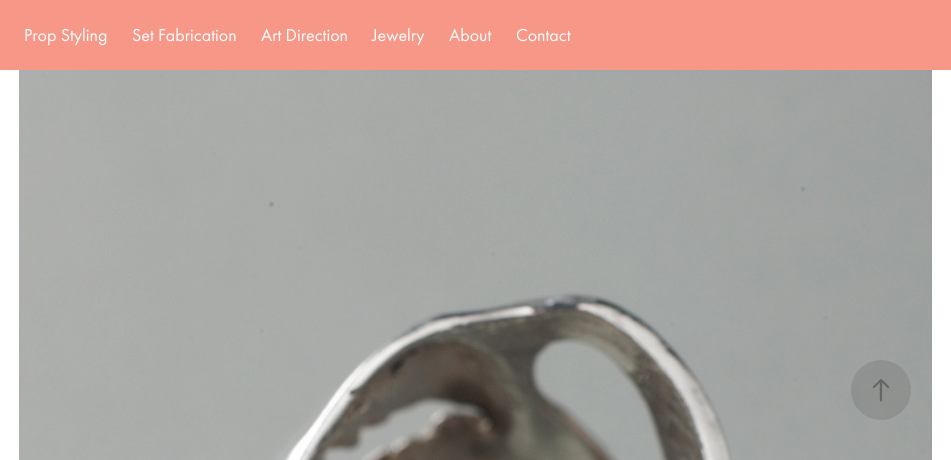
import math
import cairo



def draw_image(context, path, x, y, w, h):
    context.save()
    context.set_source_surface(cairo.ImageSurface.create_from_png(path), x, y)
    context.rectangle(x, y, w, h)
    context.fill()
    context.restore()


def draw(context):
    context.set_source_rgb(1, 1, 1)
    context.paint()
    context.set_source_rgb(246 / 255, 151 / 255, 135 / 255)
    context.rectangle(0, 0, 951, 70)
    context.fill()
    draw_image(context, "images/1.png", 19, 70, 913, 390)
    context.set_source_rgba(0, 0, 0, 0.1)
    context.arc(881, 390, 30, 0, 2 * math.pi)
    context.fill()
    draw_image(context, "images/2.png", 872, 379, 17, 23)
    context.select_font_face("Futura PT")
    context.set_font_size(18)
    context.set_source_rgb(1, 1, 1)
    context.move_to(24, 41)
    context.show_text("Prop Styling")
    context.move_to(132, 41)
    context.show_text("Set Fabrication")
    context.move_to(261, 41)
    context.show_text("Art Direction")
    context.move_to(372, 41)
    context.show_text("Jewelry")
    context.move_to(449, 41)
    context.show_text("About")
    context.move_to(516, 41)
    context.show_text("Contact")


surface = cairo.ImageSurface(cairo.Format.RGB24, 951, 460)
context = cairo.Context(surface)
options = cairo.FontOptions()
options.set_hint_metrics(cairo.HintMetrics.OFF)
options.set_hint_style(cairo.HintStyle.NONE)
context.set_font_options(options)
context.set_miter_limit(4)
draw(context)
surface.write_to_png("out.png")
